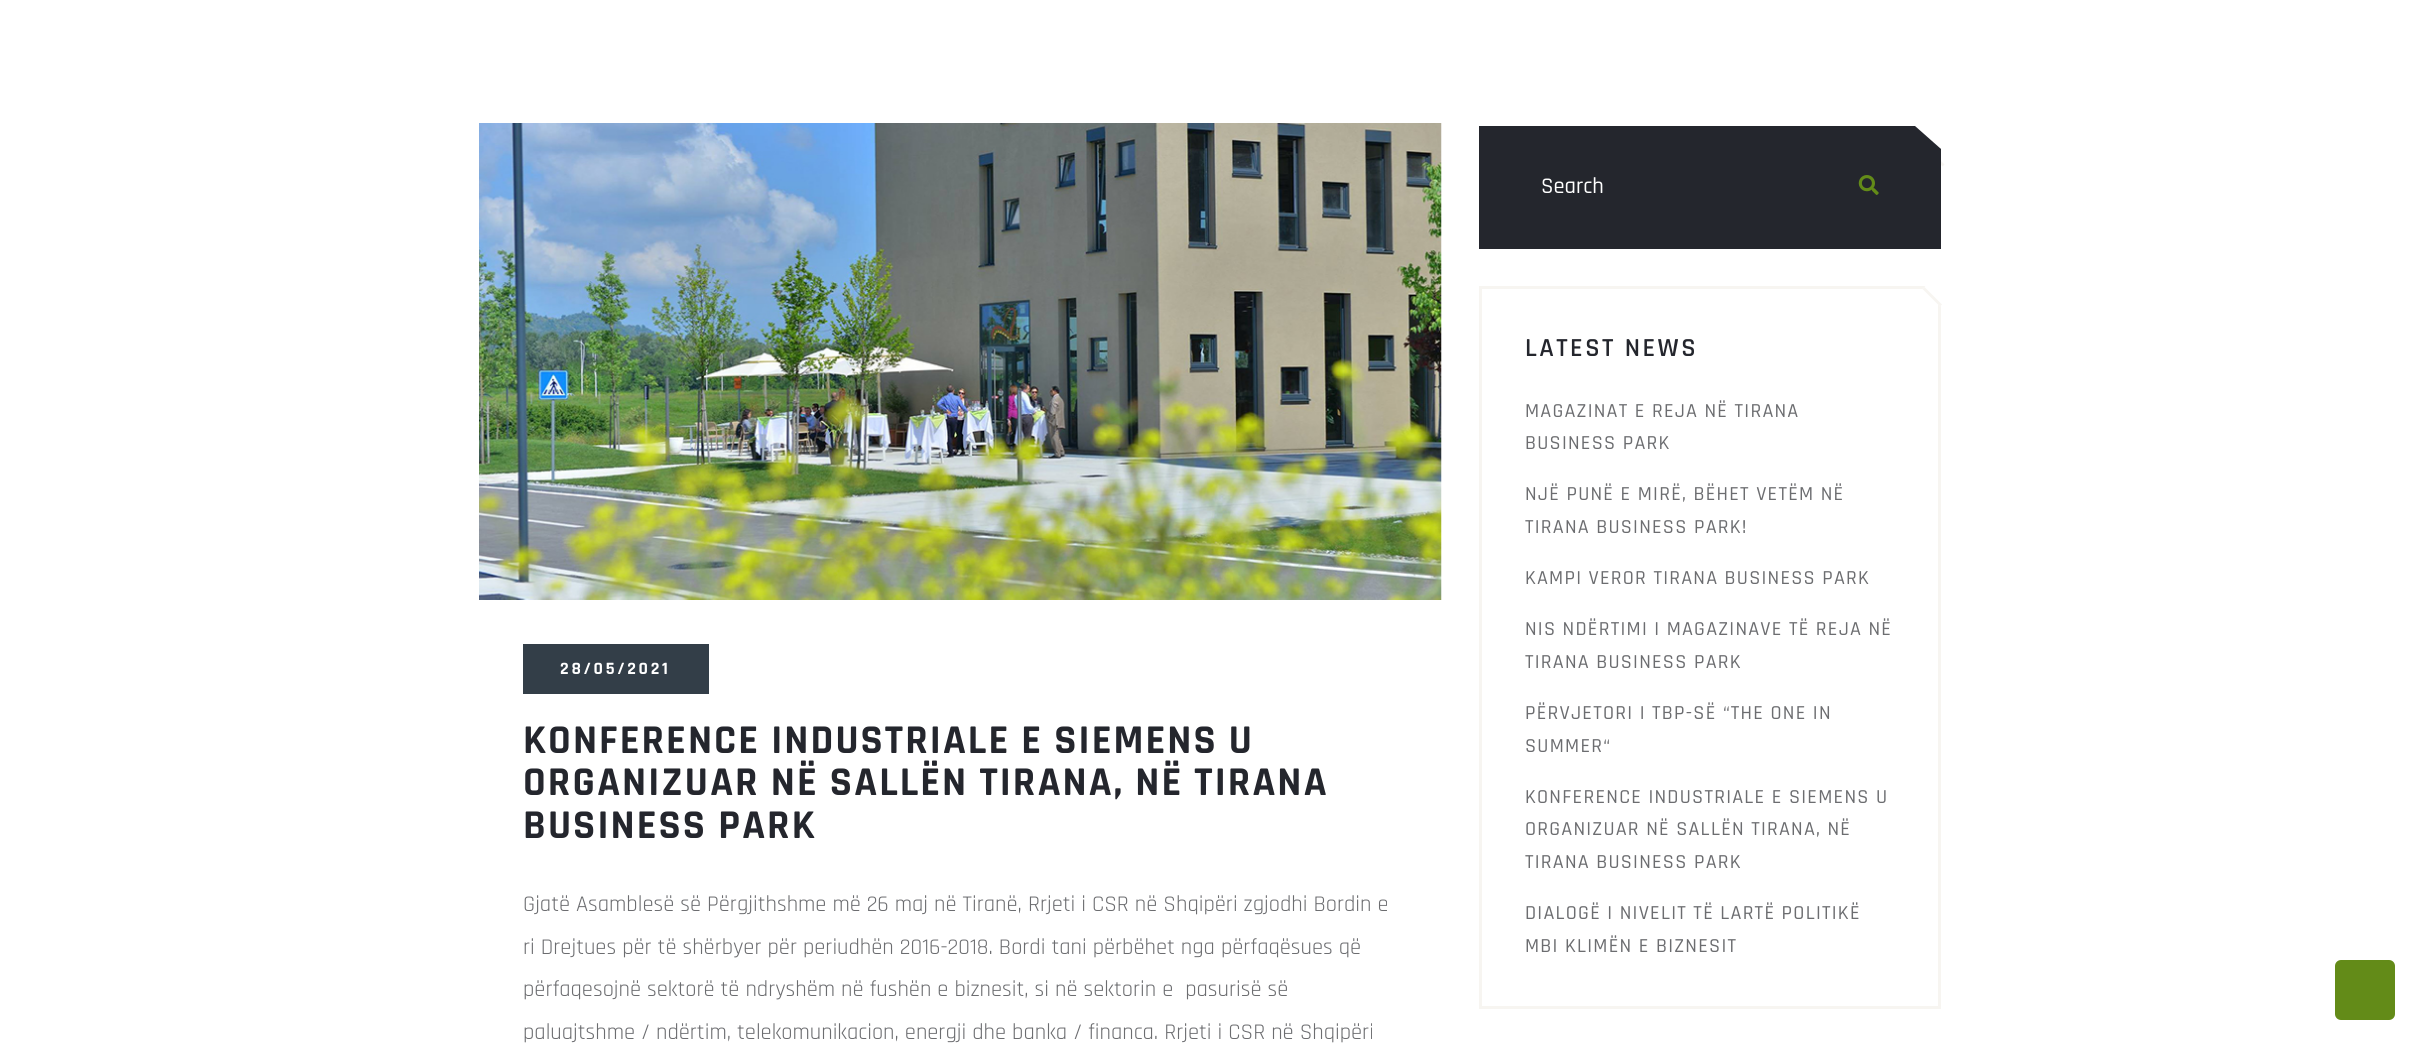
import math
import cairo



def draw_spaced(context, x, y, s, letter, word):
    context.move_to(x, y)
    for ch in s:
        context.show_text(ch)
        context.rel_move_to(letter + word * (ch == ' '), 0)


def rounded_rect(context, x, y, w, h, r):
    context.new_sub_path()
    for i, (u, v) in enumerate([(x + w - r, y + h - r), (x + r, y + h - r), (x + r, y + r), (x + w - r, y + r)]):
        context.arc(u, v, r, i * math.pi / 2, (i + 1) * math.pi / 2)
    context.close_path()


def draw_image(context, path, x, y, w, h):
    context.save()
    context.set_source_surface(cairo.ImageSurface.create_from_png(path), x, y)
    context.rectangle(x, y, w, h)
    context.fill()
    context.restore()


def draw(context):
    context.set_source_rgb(1, 1, 1)
    context.paint()
    draw_image(context, "images/1.png", 479, 123, 963, 477)
    context.set_source_rgb(51 / 255, 62 / 255, 72 / 255)
    context.rectangle(523, 644, 186, 50)
    context.fill()
    context.set_source_rgb(247 / 255, 245 / 255, 241 / 255)
    context.new_path()
    context.move_to(1925, 149)
    context.line_to(1927, 147)
    context.line_to(1944.5, 164.5)
    context.line_to(1942.5, 166.5)
    context.close_path()
    context.fill()
    context.set_source_rgb(36 / 255, 38 / 255, 45 / 255)
    context.rectangle(1479, 149, 462, 100)
    context.fill()
    context.rectangle(1479, 126, 436, 23)
    context.fill()
    context.new_path()
    context.move_to(1941, 149)
    context.line_to(1915, 149)
    context.line_to(1915, 126)
    context.close_path()
    context.fill()
    draw_image(context, "images/2.png", 1858, 175, 21, 20)
    context.rectangle(1480.5, 287.5, 459, 720)
    context.set_source_rgb(247 / 255, 245 / 255, 241 / 255)
    context.set_line_width(3)
    context.stroke()
    context.set_source_rgb(1, 1, 1)
    context.new_path()
    context.move_to(1922.5, 289)
    context.line_to(1940, 271)
    context.line_to(1958, 289)
    context.line_to(1940, 306.5)
    context.close_path()
    context.fill()
    context.set_source_rgb(247 / 255, 245 / 255, 241 / 255)
    context.new_path()
    context.move_to(1922.5, 289)
    context.line_to(1924.5, 287)
    context.line_to(1942, 304.5)
    context.line_to(1940, 306.5)
    context.close_path()
    context.fill()
    context.set_source_rgb(99 / 255, 139 / 255, 24 / 255)
    rounded_rect(context, 2335, 960, 60, 60, 6)
    context.fill()
    context.select_font_face("Rajdhani", cairo.FontSlant.NORMAL, cairo.FontWeight.BOLD)
    context.set_font_size(17.5)
    context.set_source_rgb(1, 1, 1)
    draw_spaced(context, 560, 674, "28/05/2021", 2.75, 0)
    context.set_font_size(41.25)
    context.set_source_rgb(36 / 255, 38 / 255, 45 / 255)
    draw_spaced(context, 523, 753, "KONFERENCE INDUSTRIALE E SIEMENS U", 2.05, 0)
    draw_spaced(context, 523, 795, "ORGANIZUAR NË SALLËN TIRANA, NË TIRANA", 2.05, 0)
    draw_spaced(context, 523, 838, "BUSINESS PARK", 2.05, 0)
    context.select_font_face("Rajdhani")
    context.set_font_size(22.5)
    context.set_source_rgb(108 / 255, 109 / 255, 112 / 255)
    context.move_to(523, 911)
    context.show_text("Gjatë Asamblesë së Përgjithshme më 26 maj në Tiranë, Rrjeti i CSR në Shqipëri zgjodhi Bordin e")
    context.move_to(523, 954)
    context.show_text("ri Drejtues për të shërbyer për periudhën 2016-2018. Bordi tani përbëhet nga përfaqësues që")
    context.move_to(523, 996)
    context.show_text("përfaqesojnë sektorë të ndryshëm në fushën e biznesit, si në sektorin e  pasurisë së")
    context.move_to(523, 1039)
    context.show_text("paluajtshme / ndërtim, telekomunikacion, energji dhe banka / financa. Rrjeti i CSR në Shqipëri")
    context.select_font_face("Rajdhani Medium")
    context.set_source_rgb(1, 1, 1)
    context.move_to(1541, 193)
    context.show_text("Search")
    context.select_font_face("Rajdhani SemiBold")
    context.set_font_size(26.25)
    context.set_source_rgb(36 / 255, 38 / 255, 45 / 255)
    draw_spaced(context, 1525, 356, "LATEST NEWS", 2.5, 0)
    context.select_font_face("Rajdhani Medium")
    context.set_font_size(20)
    context.set_source_rgb(108 / 255, 109 / 255, 112 / 255)
    draw_spaced(context, 1525, 417, "MAGAZINAT E REJA NË TIRANA", 1.25, 0)
    draw_spaced(context, 1525, 449, "BUSINESS PARK", 1.25, 0)
    draw_spaced(context, 1525, 500, "NJË PUNË E MIRË, BËHET VETËM NË", 1.25, 0)
    draw_spaced(context, 1525, 533, "TIRANA BUSINESS PARK!", 1.25, 0)
    draw_spaced(context, 1525, 584, "KAMPI VEROR TIRANA BUSINESS PARK", 1.25, 0)
    draw_spaced(context, 1525, 635, "NIS NDËRTIMI I MAGAZINAVE TË REJA NË", 1.25, 0)
    draw_spaced(context, 1525, 668, "TIRANA BUSINESS PARK", 1.25, 0)
    draw_spaced(context, 1525, 719, "PËRVJETORI I TBP-SË “THE ONE IN", 1.25, 0)
    draw_spaced(context, 1525, 752, "SUMMER“", 1.25, 0)
    draw_spaced(context, 1525, 803, "KONFERENCE INDUSTRIALE E SIEMENS U", 1.25, 0)
    draw_spaced(context, 1525, 835, "ORGANIZUAR NË SALLËN TIRANA, NË", 1.25, 0)
    draw_spaced(context, 1525, 868, "TIRANA BUSINESS PARK", 1.25, 0)
    draw_spaced(context, 1525, 919, "DIALOGË I NIVELIT TË LARTË POLITIKË", 1.25, 0)
    draw_spaced(context, 1525, 952, "MBI KLIMËN E BIZNESIT", 1.25, 0)


surface = cairo.ImageSurface(cairo.Format.RGB24, 2420, 1045)
context = cairo.Context(surface)
options = cairo.FontOptions()
options.set_hint_metrics(cairo.HintMetrics.OFF)
options.set_hint_style(cairo.HintStyle.NONE)
context.set_font_options(options)
context.set_miter_limit(4)
draw(context)
surface.write_to_png("out.png")
